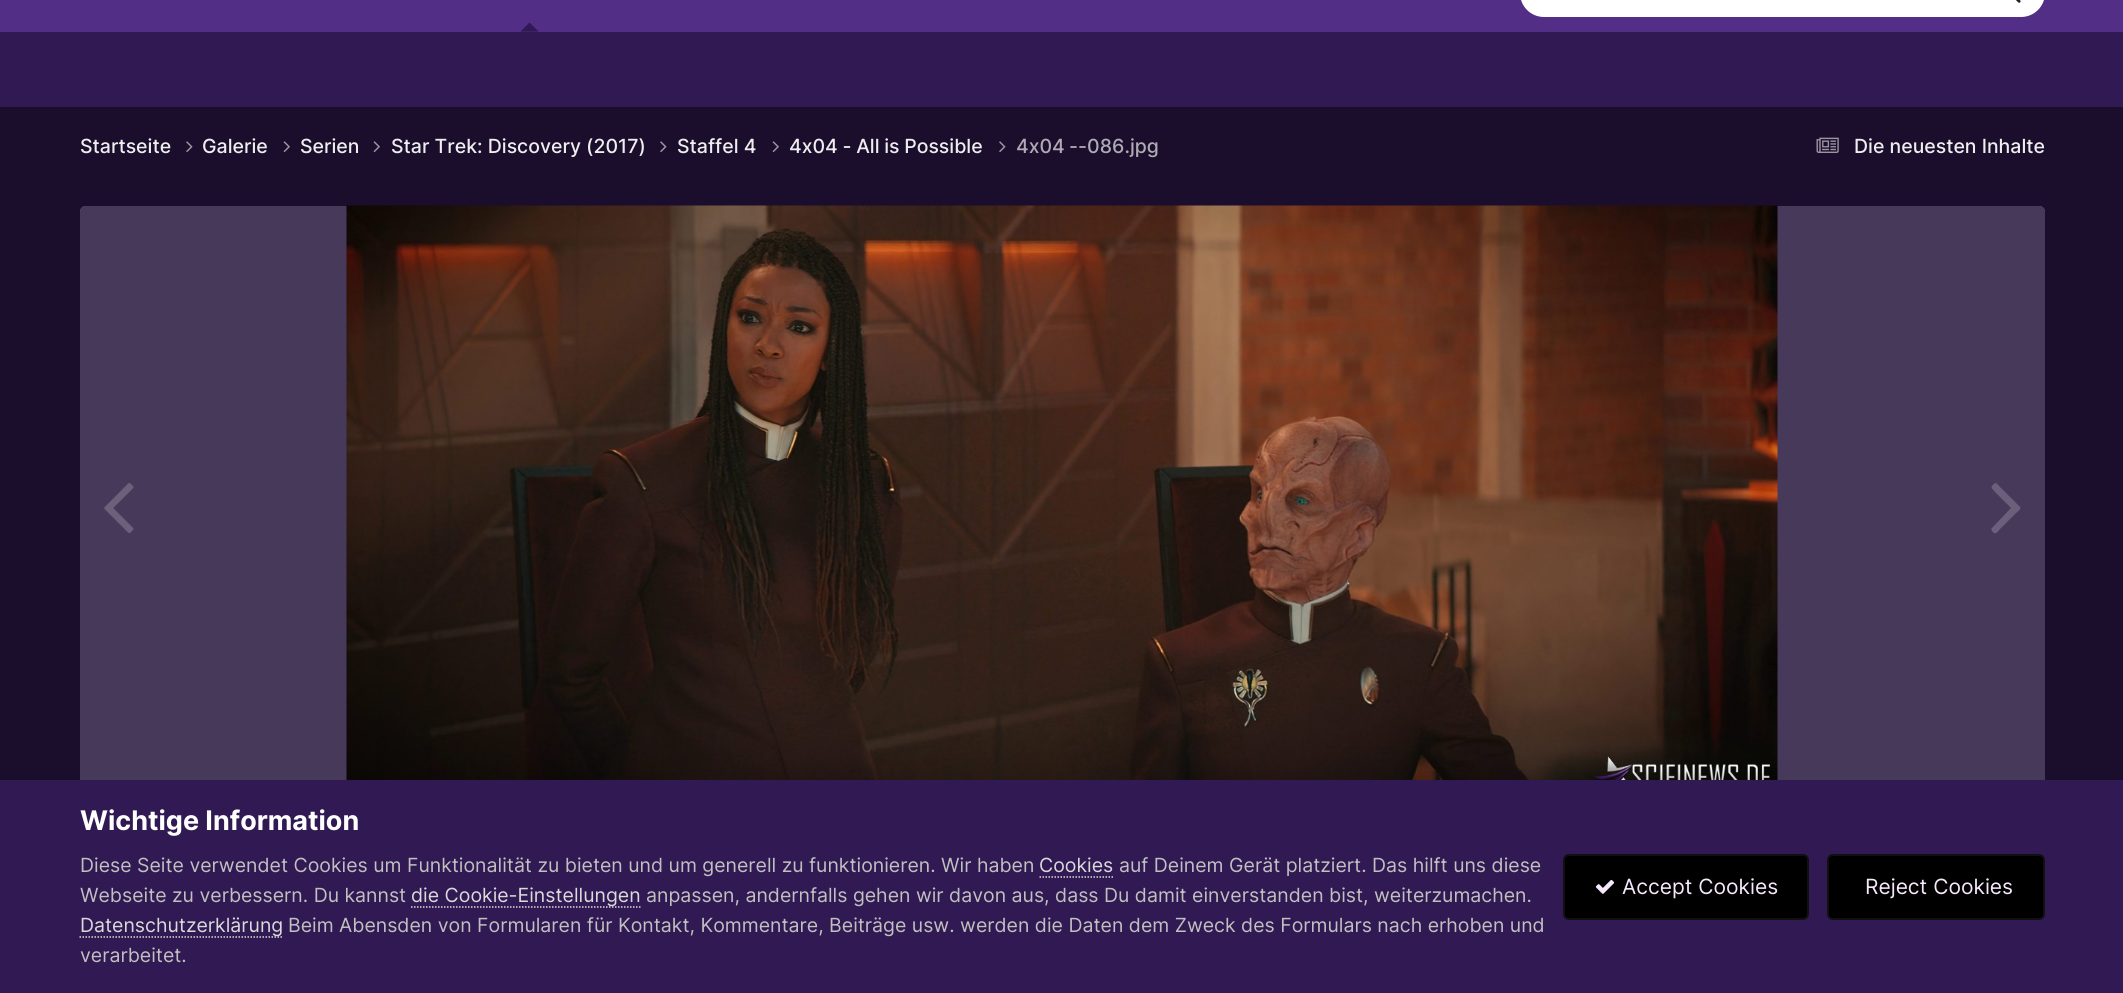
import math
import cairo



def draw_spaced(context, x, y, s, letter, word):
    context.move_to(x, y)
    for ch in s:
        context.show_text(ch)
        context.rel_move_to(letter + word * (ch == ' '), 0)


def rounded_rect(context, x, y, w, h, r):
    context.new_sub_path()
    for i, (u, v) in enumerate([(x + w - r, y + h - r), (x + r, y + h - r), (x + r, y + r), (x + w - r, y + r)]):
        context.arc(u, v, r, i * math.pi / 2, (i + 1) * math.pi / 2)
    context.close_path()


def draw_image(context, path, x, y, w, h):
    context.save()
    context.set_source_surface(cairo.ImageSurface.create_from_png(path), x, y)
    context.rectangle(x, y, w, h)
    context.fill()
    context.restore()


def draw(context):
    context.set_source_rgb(27 / 255, 14 / 255, 45 / 255)
    context.paint()
    context.set_source_rgb(82 / 255, 46 / 255, 135 / 255)
    context.rectangle(0, 0, 2123, 32)
    context.fill()
    context.set_source_rgb(1, 1, 1)
    rounded_rect(context, 1520, -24, 525, 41, 24)
    context.fill()
    draw_image(context, "images/1.png", 2016, 0, 5, 3)
    context.set_source_rgb(49 / 255, 25 / 255, 83 / 255)
    context.new_path()
    context.move_to(538.5, 31.5)
    context.line_to(520.5, 31.5)
    context.line_to(529.5, 22.5)
    context.close_path()
    context.fill()
    context.rectangle(0, 32, 2123, 75)
    context.fill()
    draw_image(context, "images/2.png", 186, 141, 7, 11)
    draw_image(context, "images/3.png", 283, 141, 7, 12)
    draw_image(context, "images/3.png", 373, 141, 7, 12)
    draw_image(context, "images/2.png", 660, 141, 7, 11)
    draw_image(context, "images/3.png", 772, 141, 7, 12)
    draw_image(context, "images/2.png", 999, 141, 7, 11)
    draw_image(context, "images/4.png", 1816, 137, 23, 16)
    context.set_source_rgb(175 / 255, 142 / 255, 224 / 255)
    context.new_path()
    context.move_to(86, 206)
    context.line_to(2039, 206)
    context.curve_to(2042.5, 206, 2045, 208.5, 2045, 212)
    context.line_to(2045, 801)
    context.line_to(80, 801)
    context.line_to(80, 212)
    context.curve_to(80, 208.5, 82.5, 206, 86, 206)
    context.close_path()
    context.fill()
    context.set_source_rgba(0, 0, 0, 0.6)
    context.new_path()
    context.move_to(86, 206)
    context.line_to(2039, 206)
    context.curve_to(2042.5, 206, 2045, 208.5, 2045, 212)
    context.line_to(2045, 801)
    context.line_to(80, 801)
    context.line_to(80, 212)
    context.curve_to(80, 208.5, 82.5, 206, 86, 206)
    context.close_path()
    context.fill()
    draw_image(context, "images/5.png", 346, 205, 1432, 575)
    draw_image(context, "images/6.png", 104, 483, 30, 50)
    context.set_source_rgb(107 / 255, 96 / 255, 123 / 255)
    context.new_path()
    context.move_to(2020, 507)
    context.curve_to(2022, 509, 2016, 513, 2016, 513)
    context.line_to(2000, 529)
    context.curve_to(2000, 529, 1996, 535, 1994, 533)
    context.curve_to(1993, 532, 1990, 530, 1992, 528)
    context.line_to(2011, 508)
    context.line_to(1995, 492)
    context.curve_to(1992, 488, 1990, 488, 1993, 485)
    context.curve_to(1996, 481, 1997, 484, 2000, 487)
    context.close_path()
    context.fill()
    context.set_source_rgb(49 / 255, 25 / 255, 83 / 255)
    context.rectangle(0, 780, 2123, 213)
    context.fill()
    context.new_path()
    context.move_to(1039.5, 877)
    context.line_to(1113, 877)
    context.set_source_rgb(218 / 255, 218 / 255, 218 / 255)
    context.set_line_width(1.5)
    context.set_dash([1.5, 1.5])
    context.stroke()
    context.new_path()
    context.move_to(411, 907)
    context.line_to(640.5, 907)
    context.stroke()
    context.new_path()
    context.move_to(79.5, 937)
    context.line_to(282, 937)
    context.stroke()
    context.set_source_rgb(0, 0, 0)
    rounded_rect(context, 1563, 854, 246, 66, 6)
    context.fill()
    rounded_rect(context, 1564, 855, 244, 64, 5)
    context.set_source_rgba(246 / 255, 232 / 255, 252 / 255, 0.07)
    context.set_line_width(2)
    context.set_dash([])
    context.stroke()
    draw_image(context, "images/7.png", 1595, 879, 20, 15)
    context.set_source_rgb(0, 0, 0)
    rounded_rect(context, 1827, 854, 218, 66, 6)
    context.fill()
    rounded_rect(context, 1828, 855, 216, 64, 5)
    context.set_source_rgba(246 / 255, 232 / 255, 252 / 255, 0.07)
    context.stroke()
    context.select_font_face("Inter Medium")
    context.set_font_size(19.5)
    context.set_source_rgb(238 / 255, 238 / 255, 238 / 255)
    context.move_to(80, 153)
    context.show_text("Startseite")
    context.move_to(202, 153)
    context.show_text("Galerie")
    context.move_to(300, 153)
    context.show_text("Serien")
    context.move_to(391, 153)
    context.show_text("Star Trek: Discovery (2017)")
    context.move_to(677, 153)
    context.show_text("Staffel 4")
    draw_spaced(context, 789, 153, "4x04 - All is Possible", 0, -0.5)
    context.set_source_rgb(175 / 255, 171 / 255, 180 / 255)
    draw_spaced(context, 1016, 153, "4x04 --086.jpg", 0, -1)
    context.set_source_rgb(238 / 255, 238 / 255, 238 / 255)
    context.move_to(1854, 153)
    context.show_text("Die neuesten Inhalte")
    context.select_font_face("Inter", cairo.FontSlant.NORMAL, cairo.FontWeight.BOLD)
    context.set_font_size(27)
    context.set_source_rgb(1, 1, 1)
    context.move_to(80, 830)
    context.show_text("Wichtige Information")
    context.select_font_face("Inter")
    context.set_font_size(19.5)
    context.set_source_rgb(192 / 255, 192 / 255, 192 / 255)
    context.move_to(80, 872)
    context.show_text("Diese Seite verwendet Cookies um Funktionalität zu bieten und um generell zu funktionieren. Wir haben")
    context.set_source_rgb(218 / 255, 218 / 255, 218 / 255)
    context.move_to(1039, 872)
    context.show_text("Cookies")
    context.set_source_rgb(192 / 255, 192 / 255, 192 / 255)
    context.move_to(1119, 872)
    context.show_text("auf Deinem Gerät platziert. Das hilft uns diese")
    context.move_to(80, 902)
    context.show_text("Webseite zu verbessern. Du kannst")
    context.set_source_rgb(218 / 255, 218 / 255, 218 / 255)
    context.move_to(411, 902)
    context.show_text("die Cookie-Einstellungen")
    context.set_source_rgb(192 / 255, 192 / 255, 192 / 255)
    context.move_to(646, 902)
    context.show_text("anpassen, andernfalls gehen wir davon aus, dass Du damit einverstanden bist, weiterzumachen.")
    context.set_source_rgb(218 / 255, 218 / 255, 218 / 255)
    context.move_to(80, 932)
    context.show_text("Datenschutzerklärung")
    context.set_source_rgb(192 / 255, 192 / 255, 192 / 255)
    context.move_to(288, 932)
    context.show_text("Beim Abensden von Formularen für Kontakt, Kommentare, Beiträge usw. werden die Daten dem Zweck des Formulars nach erhoben und")
    context.move_to(80, 962)
    context.show_text("verarbeitet.")
    context.set_font_size(21)
    context.set_source_rgb(246 / 255, 232 / 255, 252 / 255)
    context.move_to(1622, 894)
    context.show_text("Accept Cookies")
    context.move_to(1865, 894)
    context.show_text("Reject Cookies")


surface = cairo.ImageSurface(cairo.Format.RGB24, 2123, 993)
context = cairo.Context(surface)
options = cairo.FontOptions()
options.set_hint_metrics(cairo.HintMetrics.OFF)
options.set_hint_style(cairo.HintStyle.NONE)
context.set_font_options(options)
context.set_miter_limit(4)
draw(context)
surface.write_to_png("out.png")
